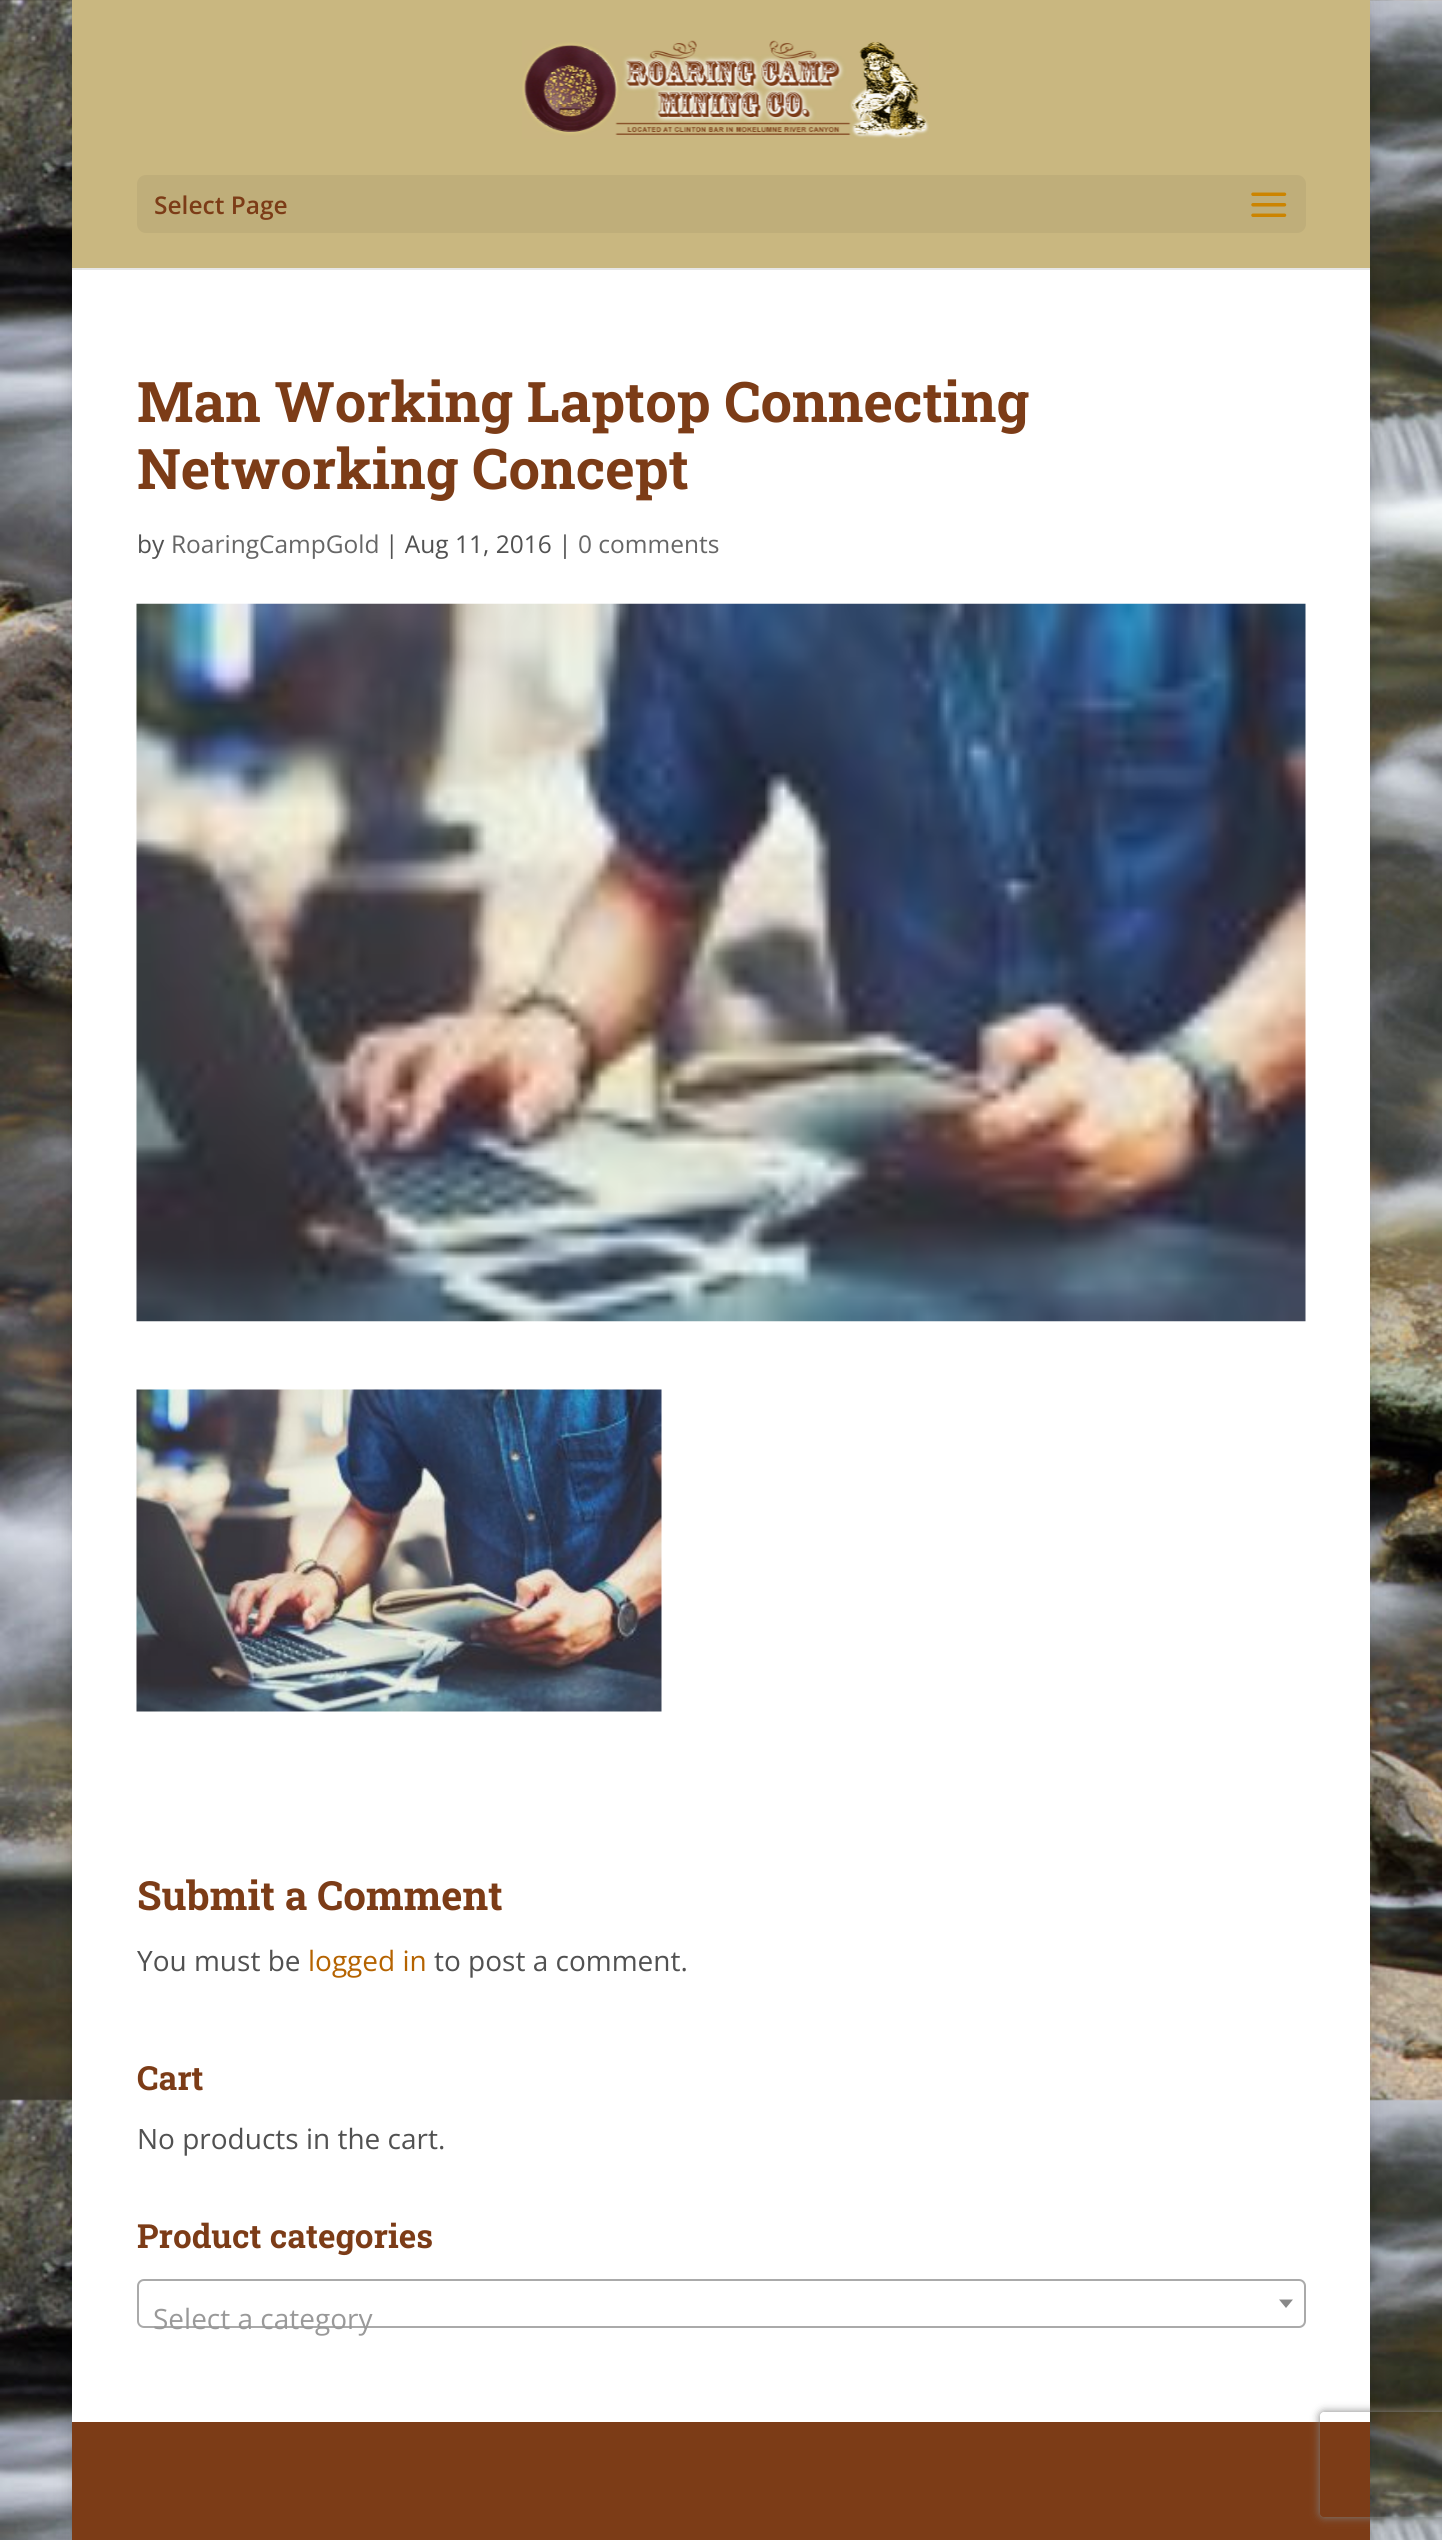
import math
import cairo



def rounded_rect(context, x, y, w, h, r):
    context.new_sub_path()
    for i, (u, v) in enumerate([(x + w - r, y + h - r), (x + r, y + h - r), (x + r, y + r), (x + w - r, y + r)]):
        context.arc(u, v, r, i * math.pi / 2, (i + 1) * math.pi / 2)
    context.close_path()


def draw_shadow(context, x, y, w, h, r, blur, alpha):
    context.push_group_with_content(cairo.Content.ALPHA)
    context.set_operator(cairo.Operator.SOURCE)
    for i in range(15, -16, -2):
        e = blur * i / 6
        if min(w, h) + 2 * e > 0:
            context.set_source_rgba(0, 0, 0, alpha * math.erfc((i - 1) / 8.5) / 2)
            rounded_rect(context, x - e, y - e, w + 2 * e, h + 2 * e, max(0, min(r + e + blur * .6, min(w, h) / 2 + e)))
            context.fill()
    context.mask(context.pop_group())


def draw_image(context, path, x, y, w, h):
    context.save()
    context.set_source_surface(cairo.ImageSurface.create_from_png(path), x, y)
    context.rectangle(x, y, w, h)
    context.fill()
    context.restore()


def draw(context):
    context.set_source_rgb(1, 1, 1)
    context.paint()
    draw_image(context, "images/1.png", 0, 0, 1442, 2540)
    context.set_source_rgb(0, 0, 0)
    draw_shadow(context, 72, 0, 1298, 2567, 0, 9, 0.2)
    context.set_source_rgb(230 / 255, 230 / 255, 230 / 255)
    context.rectangle(72, 268, 1298, 2)
    context.fill()
    context.set_source_rgb(201 / 255, 183 / 255, 128 / 255)
    context.rectangle(72, 0, 1298, 268)
    context.fill()
    draw_image(context, "images/2.png", 522, 40, 407, 99)
    context.set_source_rgb(191 / 255, 174 / 255, 122 / 255)
    rounded_rect(context, 137, 175, 1169, 58, 9)
    context.fill()
    draw_image(context, "images/3.png", 1251, 192, 36, 25)
    context.set_source_rgb(1, 1, 1)
    context.rectangle(72, 270, 1298, 2152)
    context.fill()
    draw_image(context, "images/4.png", 136, 603, 1170, 719)
    draw_image(context, "images/5.png", 136, 1389, 526, 323)
    rounded_rect(context, 138, 2280, 1167, 47, 6)
    context.set_source_rgb(170 / 255, 170 / 255, 170 / 255)
    context.stroke()
    context.set_source_rgb(136 / 255, 136 / 255, 136 / 255)
    context.new_path()
    context.move_to(1279, 2299.5)
    context.line_to(1293, 2299.5)
    context.line_to(1286, 2308)
    context.close_path()
    context.fill()
    context.set_source_rgb(124 / 255, 60 / 255, 23 / 255)
    context.rectangle(72, 2422, 1298, 118)
    context.fill()
    context.save()
    context.set_fill_rule(cairo.FillRule.EVEN_ODD)
    context.new_path()
    context.move_to(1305, 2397)
    context.line_to(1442, 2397)
    context.line_to(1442, 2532)
    context.line_to(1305, 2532)
    context.close_path()
    context.move_to(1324, 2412)
    context.line_to(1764, 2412)
    context.curve_to(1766, 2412, 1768, 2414, 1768, 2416)
    context.line_to(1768, 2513)
    context.curve_to(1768, 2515, 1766, 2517, 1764, 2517)
    context.line_to(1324, 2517)
    context.curve_to(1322, 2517, 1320, 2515, 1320, 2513)
    context.line_to(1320, 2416)
    context.curve_to(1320, 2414, 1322, 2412, 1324, 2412)
    context.close_path()
    context.clip()
    context.set_source_rgb(128 / 255, 128 / 255, 128 / 255)
    draw_shadow(context, 1320, 2412, 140, 105, 4, 4.5, 1)
    context.restore()
    context.select_font_face("Open Sans SemiBold")
    context.set_font_size(24.5)
    context.move_to(154, 214)
    context.show_text("Select Page")
    context.select_font_face("Roboto Slab", cairo.FontSlant.NORMAL, cairo.FontWeight.BOLD)
    context.set_font_size(56)
    context.move_to(137, 422)
    context.show_text("Man Working Laptop Connecting")
    context.move_to(137, 489)
    context.show_text("Networking Concept")
    context.select_font_face("Open Sans")
    context.set_font_size(24.5)
    context.set_source_rgb(81 / 255, 81 / 255, 81 / 255)
    context.move_to(137, 553)
    context.show_text("by")
    context.set_source_rgb(102 / 255, 102 / 255, 102 / 255)
    context.move_to(171, 553)
    context.show_text("RoaringCampGold")
    context.set_source_rgb(81 / 255, 81 / 255, 81 / 255)
    context.move_to(385, 553)
    context.show_text("| Aug 11, 2016 |")
    context.set_source_rgb(102 / 255, 102 / 255, 102 / 255)
    context.move_to(578, 553)
    context.show_text("0 comments")
    context.select_font_face("Roboto Slab", cairo.FontSlant.NORMAL, cairo.FontWeight.BOLD)
    context.set_font_size(40.25)
    context.set_source_rgb(124 / 255, 60 / 255, 23 / 255)
    context.move_to(137, 1910)
    context.show_text("Submit a Comment")
    context.select_font_face("Open Sans")
    context.set_font_size(28)
    context.set_source_rgb(81 / 255, 81 / 255, 81 / 255)
    context.move_to(137, 1971)
    context.show_text("You must be")
    context.set_source_rgb(181 / 255, 99 / 255, 0)
    context.move_to(308, 1971)
    context.show_text("logged in")
    context.set_source_rgb(81 / 255, 81 / 255, 81 / 255)
    context.move_to(434, 1971)
    context.show_text("to post a comment.")
    context.select_font_face("Roboto Slab", cairo.FontSlant.NORMAL, cairo.FontWeight.BOLD)
    context.set_font_size(33.25)
    context.set_source_rgb(124 / 255, 60 / 255, 23 / 255)
    context.move_to(137, 2090)
    context.show_text("Cart")
    context.select_font_face("Open Sans")
    context.set_font_size(28)
    context.set_source_rgb(81 / 255, 81 / 255, 81 / 255)
    context.move_to(137, 2149)
    context.show_text("No products in the cart.")
    context.select_font_face("Roboto Slab", cairo.FontSlant.NORMAL, cairo.FontWeight.BOLD)
    context.set_font_size(33.25)
    context.set_source_rgb(124 / 255, 60 / 255, 23 / 255)
    context.move_to(137, 2248)
    context.show_text("Product categories")
    context.select_font_face("Open Sans")
    context.set_font_size(28)
    context.set_source_rgb(153 / 255, 153 / 255, 153 / 255)
    context.move_to(153, 2329)
    context.show_text("Select a category")


surface = cairo.ImageSurface(cairo.Format.RGB24, 1442, 2540)
context = cairo.Context(surface)
options = cairo.FontOptions()
options.set_hint_metrics(cairo.HintMetrics.OFF)
options.set_hint_style(cairo.HintStyle.NONE)
context.set_font_options(options)
context.set_miter_limit(4)
draw(context)
surface.write_to_png("out.png")
